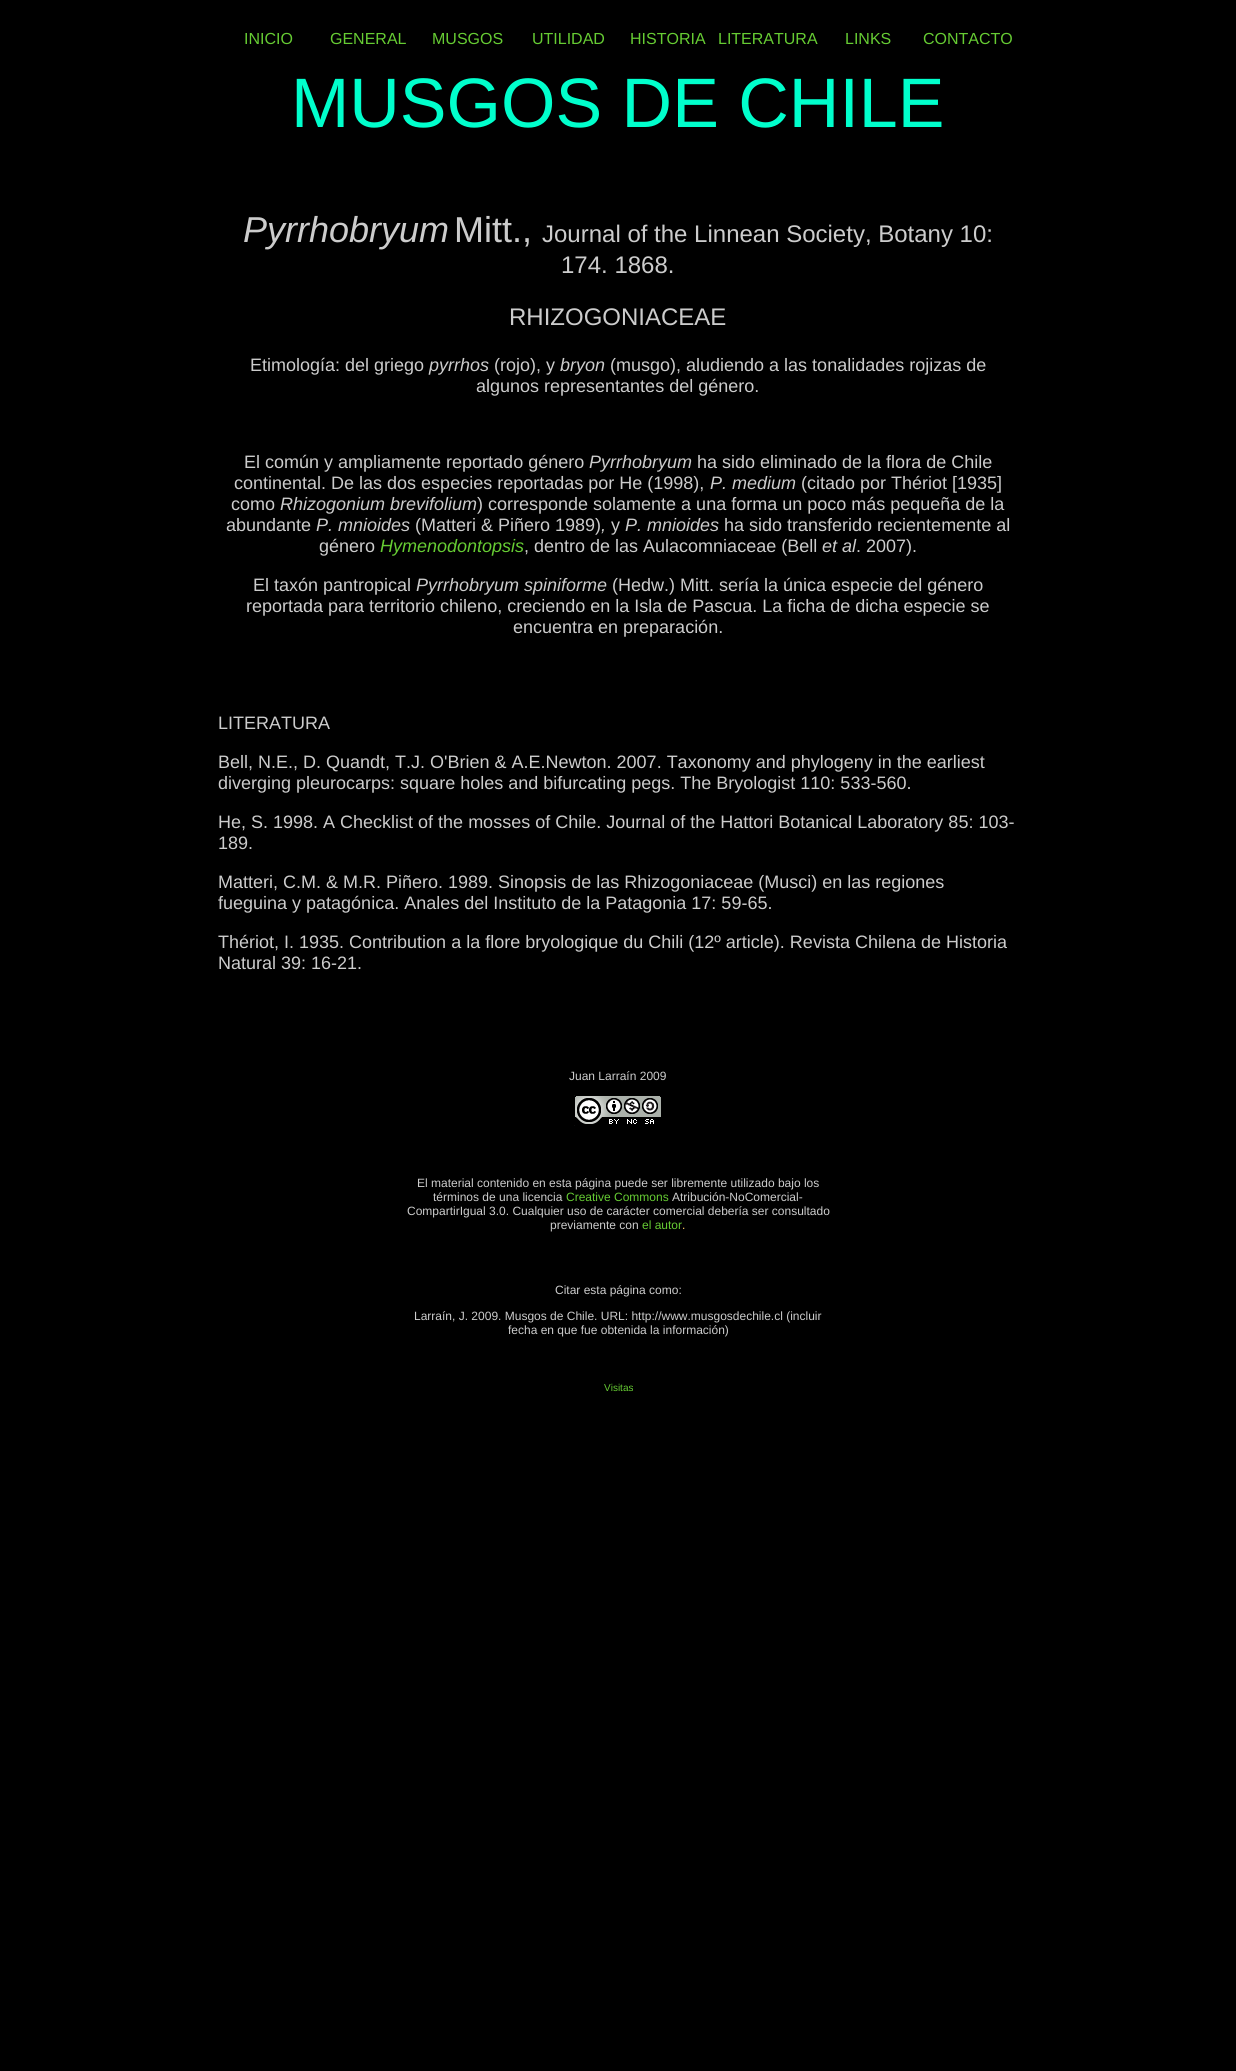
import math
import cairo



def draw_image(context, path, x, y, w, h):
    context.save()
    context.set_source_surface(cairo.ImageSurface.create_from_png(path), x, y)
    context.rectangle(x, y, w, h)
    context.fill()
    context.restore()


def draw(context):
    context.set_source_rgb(0, 0, 0)
    context.paint()
    draw_image(context, "images/1.png", 574, 1095, 87, 31)
    context.select_font_face("Liberation Sans")
    context.set_font_size(16)
    context.set_source_rgb(102 / 255, 204 / 255, 51 / 255)
    context.move_to(244, 44)
    context.show_text("INICIO")
    context.move_to(330, 44)
    context.show_text("GENERAL")
    context.move_to(432, 44)
    context.show_text("MUSGOS")
    context.move_to(532, 44)
    context.show_text("UTILIDAD")
    context.move_to(630, 44)
    context.show_text("HISTORIA")
    context.move_to(718, 44)
    context.show_text("LITERATURA")
    context.move_to(845, 44)
    context.show_text("LINKS")
    context.move_to(923, 44)
    context.show_text("CONTACTO")
    context.set_font_size(70)
    context.set_source_rgb(0, 1, 204 / 255)
    context.move_to(291, 127)
    context.show_text("MUSGOS DE CHILE")
    context.select_font_face("Liberation Sans", cairo.FontSlant.ITALIC)
    context.set_font_size(36)
    context.set_source_rgb(204 / 255, 204 / 255, 204 / 255)
    context.move_to(243, 242)
    context.show_text("Pyrrhobryum")
    context.select_font_face("Liberation Sans")
    context.move_to(454, 242)
    context.show_text("Mitt.,")
    context.set_font_size(24)
    context.move_to(542, 242)
    context.show_text("Journal of the Linnean Society, Botany 10:")
    context.move_to(561, 273)
    context.show_text("174. 1868.")
    context.move_to(509, 325)
    context.show_text("RHIZOGONIACEAE")
    context.set_font_size(18)
    context.move_to(250, 371)
    context.show_text("Etimología: del griego")
    context.select_font_face("Liberation Sans", cairo.FontSlant.ITALIC)
    context.move_to(429, 371)
    context.show_text("pyrrhos")
    context.select_font_face("Liberation Sans")
    context.move_to(494, 371)
    context.show_text("(rojo), y")
    context.select_font_face("Liberation Sans", cairo.FontSlant.ITALIC)
    context.move_to(560, 371)
    context.show_text("bryon")
    context.select_font_face("Liberation Sans")
    context.move_to(610, 371)
    context.show_text("(musgo), aludiendo a las tonalidades rojizas de")
    context.move_to(476, 392)
    context.show_text("algunos representantes del género.")
    context.move_to(244, 468)
    context.show_text("El común y ampliamente reportado género")
    context.select_font_face("Liberation Sans", cairo.FontSlant.ITALIC)
    context.move_to(589, 468)
    context.show_text("Pyrrhobryum")
    context.select_font_face("Liberation Sans")
    context.move_to(697, 468)
    context.show_text("ha sido eliminado de la flora de Chile")
    context.move_to(234, 489)
    context.show_text("continental. De las dos especies reportadas por He (1998),")
    context.select_font_face("Liberation Sans", cairo.FontSlant.ITALIC)
    context.move_to(710, 489)
    context.show_text("P. medium")
    context.select_font_face("Liberation Sans")
    context.move_to(801, 489)
    context.show_text("(citado por Thériot [1935]")
    context.move_to(231, 510)
    context.show_text("como")
    context.select_font_face("Liberation Sans", cairo.FontSlant.ITALIC)
    context.move_to(280, 510)
    context.show_text("Rhizogonium brevifolium")
    context.select_font_face("Liberation Sans")
    context.move_to(477, 510)
    context.show_text(") corresponde solamente a una forma un poco más pequeña de la")
    context.move_to(226, 531)
    context.show_text("abundante")
    context.select_font_face("Liberation Sans", cairo.FontSlant.ITALIC)
    context.move_to(316, 531)
    context.show_text("P. mnioides")
    context.select_font_face("Liberation Sans")
    context.move_to(415, 531)
    context.show_text("(Matteri & Piñero 1989)")
    context.select_font_face("Liberation Sans", cairo.FontSlant.ITALIC)
    context.move_to(601, 531)
    context.show_text(",")
    context.select_font_face("Liberation Sans")
    context.move_to(611, 531)
    context.show_text("y")
    context.select_font_face("Liberation Sans", cairo.FontSlant.ITALIC)
    context.move_to(625, 531)
    context.show_text("P. mnioides")
    context.select_font_face("Liberation Sans")
    context.move_to(724, 531)
    context.show_text("ha sido transferido recientemente al")
    context.move_to(319, 552)
    context.show_text("género")
    context.select_font_face("Liberation Sans", cairo.FontSlant.ITALIC)
    context.set_source_rgb(102 / 255, 204 / 255, 51 / 255)
    context.move_to(380, 552)
    context.show_text("Hymenodontopsis")
    context.select_font_face("Liberation Sans")
    context.set_source_rgb(204 / 255, 204 / 255, 204 / 255)
    context.move_to(524, 552)
    context.show_text(", dentro de las Aulacomniaceae (Bell")
    context.select_font_face("Liberation Sans", cairo.FontSlant.ITALIC)
    context.move_to(822, 552)
    context.show_text("et al")
    context.select_font_face("Liberation Sans")
    context.move_to(856, 552)
    context.show_text(". 2007).")
    context.move_to(253, 591)
    context.show_text("El taxón pantropical")
    context.select_font_face("Liberation Sans", cairo.FontSlant.ITALIC)
    context.move_to(416, 591)
    context.show_text("Pyrrhobryum spiniforme")
    context.select_font_face("Liberation Sans")
    context.move_to(612, 591)
    context.show_text("(Hedw.) Mitt. sería la única especie del género")
    context.move_to(246, 612)
    context.show_text("reportada para territorio chileno, creciendo en la Isla de Pascua. La ficha de dicha especie se")
    context.move_to(513, 633)
    context.show_text("encuentra en preparación.")
    context.move_to(218, 729)
    context.show_text("LITERATURA")
    context.move_to(218, 768)
    context.show_text("Bell, N.E., D. Quandt, T.J. O'Brien & A.E.Newton. 2007. Taxonomy and phylogeny in the earliest")
    context.move_to(218, 789)
    context.show_text("diverging pleurocarps: square holes and bifurcating pegs. The Bryologist 110: 533-560.")
    context.move_to(218, 828)
    context.show_text("He, S. 1998. A Checklist of the mosses of Chile. Journal of the Hattori Botanical Laboratory 85: 103-")
    context.move_to(218, 849)
    context.show_text("189.")
    context.move_to(218, 888)
    context.show_text("Matteri, C.M. & M.R. Piñero. 1989. Sinopsis de las Rhizogoniaceae (Musci) en las regiones")
    context.move_to(218, 909)
    context.show_text("fueguina y patagónica. Anales del Instituto de la Patagonia 17: 59-65.")
    context.move_to(218, 948)
    context.show_text("Thériot, I. 1935. Contribution a la flore bryologique du Chili (12º article). Revista Chilena de Historia")
    context.move_to(218, 969)
    context.show_text("Natural 39: 16-21.")
    context.set_font_size(12)
    context.move_to(569, 1080)
    context.show_text("Juan Larraín 2009")
    context.move_to(417, 1187)
    context.show_text("El material contenido en esta página puede ser libremente utilizado bajo los")
    context.move_to(433, 1201)
    context.show_text("términos de una licencia")
    context.set_source_rgb(102 / 255, 204 / 255, 51 / 255)
    context.move_to(566, 1201)
    context.show_text("Creative Commons")
    context.set_source_rgb(204 / 255, 204 / 255, 204 / 255)
    context.move_to(672, 1201)
    context.show_text("Atribución-NoComercial-")
    context.move_to(407, 1215)
    context.show_text("CompartirIgual 3.0. Cualquier uso de carácter comercial debería ser consultado")
    context.move_to(550, 1229)
    context.show_text("previamente con")
    context.set_source_rgb(102 / 255, 204 / 255, 51 / 255)
    context.move_to(642, 1229)
    context.show_text("el autor")
    context.set_source_rgb(1, 204 / 255, 102 / 255)
    context.move_to(682, 1229)
    context.show_text(".")
    context.set_source_rgb(204 / 255, 204 / 255, 204 / 255)
    context.move_to(555, 1294)
    context.show_text("Citar esta página como:")
    context.move_to(414, 1320)
    context.show_text("Larraín, J. 2009. Musgos de Chile. URL: http://www.musgosdechile.cl (incluir")
    context.move_to(508, 1334)
    context.show_text("fecha en que fue obtenida la información)")
    context.set_font_size(10)
    context.set_source_rgb(102 / 255, 204 / 255, 51 / 255)
    context.move_to(604, 1391)
    context.show_text("Visitas")


surface = cairo.ImageSurface(cairo.Format.RGB24, 1236, 2071)
context = cairo.Context(surface)
options = cairo.FontOptions()
options.set_hint_metrics(cairo.HintMetrics.OFF)
options.set_hint_style(cairo.HintStyle.NONE)
context.set_font_options(options)
context.set_miter_limit(4)
draw(context)
surface.write_to_png("out.png")
